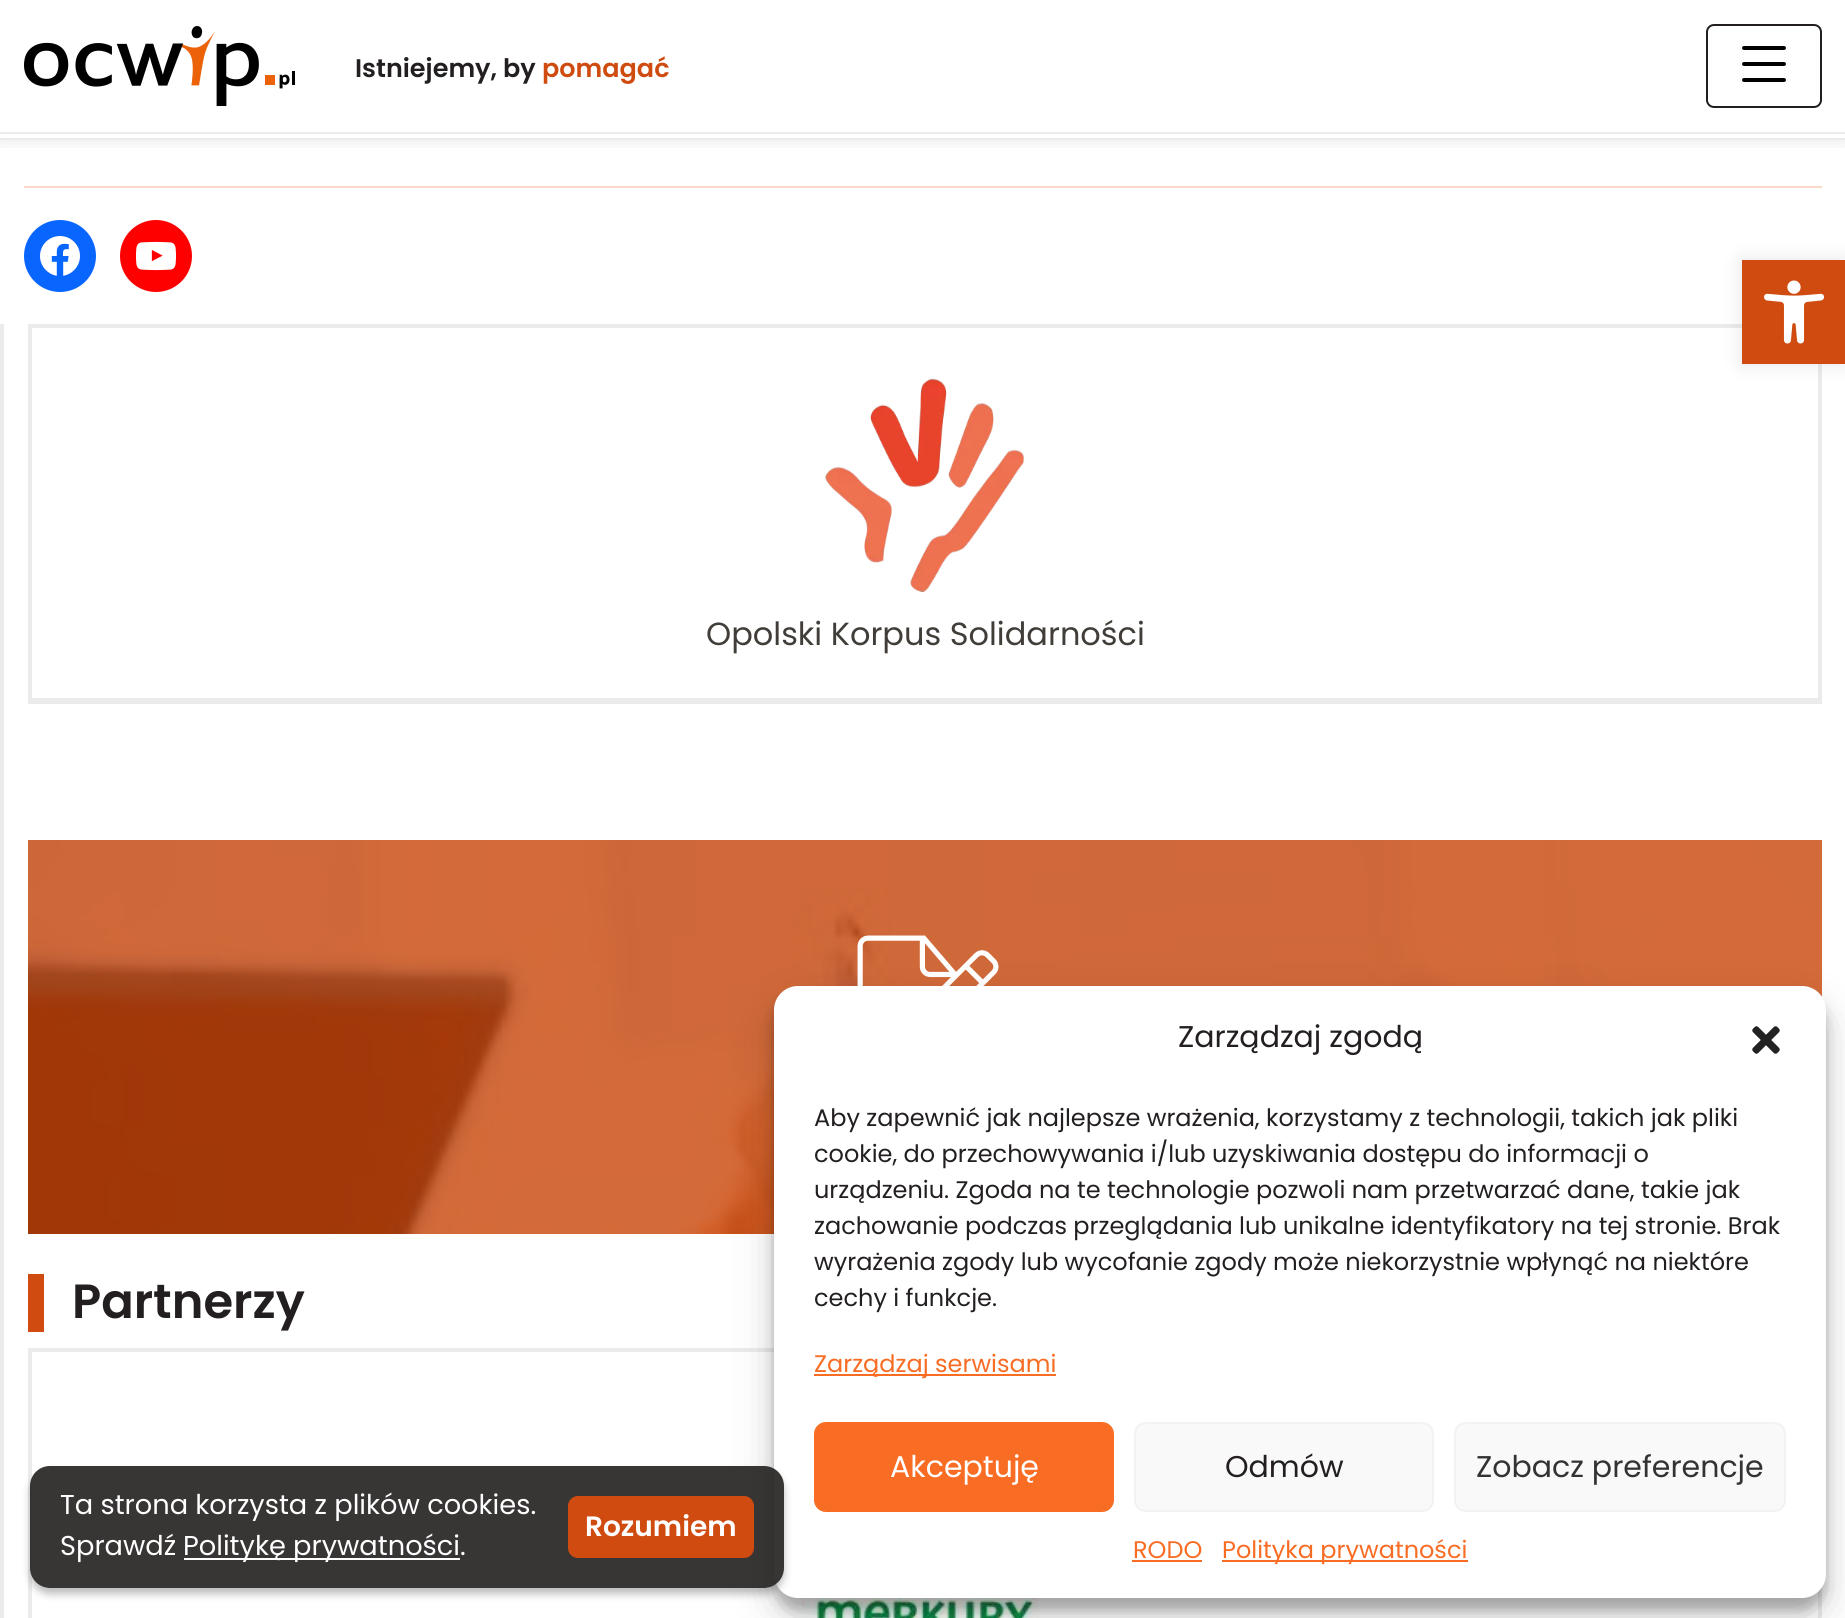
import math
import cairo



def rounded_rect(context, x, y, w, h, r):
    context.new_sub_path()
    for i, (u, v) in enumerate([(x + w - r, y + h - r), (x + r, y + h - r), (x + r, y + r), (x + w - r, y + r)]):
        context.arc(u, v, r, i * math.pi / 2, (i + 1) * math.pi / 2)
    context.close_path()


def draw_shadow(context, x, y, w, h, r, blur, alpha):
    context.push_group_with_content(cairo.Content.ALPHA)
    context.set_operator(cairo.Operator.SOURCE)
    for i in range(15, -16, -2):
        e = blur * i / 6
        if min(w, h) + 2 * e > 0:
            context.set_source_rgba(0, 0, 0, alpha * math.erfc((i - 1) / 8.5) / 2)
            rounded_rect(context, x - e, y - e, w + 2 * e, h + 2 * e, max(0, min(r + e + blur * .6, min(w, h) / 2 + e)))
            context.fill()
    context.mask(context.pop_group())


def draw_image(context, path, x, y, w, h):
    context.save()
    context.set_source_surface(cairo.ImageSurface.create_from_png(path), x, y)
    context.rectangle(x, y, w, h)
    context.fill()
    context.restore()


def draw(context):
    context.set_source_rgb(1, 1, 1)
    context.paint()
    context.save()
    context.rectangle(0, 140, 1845, 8)
    context.clip()
    context.set_source_rgb(0, 0, 0)
    draw_shadow(context, 0, 88, 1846, 52, 0, 10, 0.1)
    context.restore()
    context.set_source_rgb(1, 1, 1)
    context.rectangle(0, 75, 1845, 13)
    context.fill()
    context.set_source_rgb(235 / 255, 235 / 255, 235 / 255)
    context.rectangle(0, 132, 1845, 2)
    context.fill()
    draw_image(context, "images/1.png", 24, 26, 271, 80)
    rounded_rect(context, 1707, 25, 114, 82, 7)
    context.set_source_rgb(35 / 255, 31 / 255, 32 / 255)
    context.stroke()
    draw_image(context, "images/2.png", 1742, 46, 44, 36)
    context.set_source_rgb(235 / 255, 235 / 255, 235 / 255)
    context.rectangle(0, 138, 1845, 2)
    context.fill()
    context.set_source_rgb(252 / 255, 218 / 255, 200 / 255)
    context.rectangle(24, 186, 1798, 2)
    context.fill()
    context.set_source_rgb(8 / 255, 102 / 255, 1)
    context.arc(60, 256, 36, 0, 2 * math.pi)
    context.fill()
    draw_image(context, "images/3.png", 40, 236, 40, 40)
    context.set_source_rgb(1, 0, 0)
    context.arc(156, 256, 36, 0, 2 * math.pi)
    context.fill()
    draw_image(context, "images/4.png", 136, 241, 40, 30)
    context.set_source_rgb(235 / 255, 235 / 255, 235 / 255)
    context.rectangle(0, 324, 4, 1294)
    context.fill()
    context.rectangle(30, 326, 1790, 416)
    context.set_line_width(4)
    context.stroke()
    context.rectangle(28, 698, 1794, 6)
    context.fill()
    draw_image(context, "images/5.png", 825, 378, 200, 214)
    context.set_source_rgb(1, 1, 1)
    context.rectangle(28, 704, 1794, 40)
    context.fill()
    draw_image(context, "images/6.png", 28, 840, 1794, 394)
    draw_image(context, "images/7.png", 857, 935, 142, 51)
    context.set_source_rgb(207 / 255, 75 / 255, 15 / 255)
    context.rectangle(28, 1274, 16, 58)
    context.fill()
    context.rectangle(30, 1350, 1790, 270)
    context.set_source_rgb(235 / 255, 235 / 255, 235 / 255)
    context.stroke()
    draw_image(context, "images/8.png", 802, 1598, 237, 20)
    context.set_source_rgb(0, 0, 0)
    draw_shadow(context, 1742, 260, 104, 104, 0, 10, 0.1)
    context.set_source_rgb(207 / 255, 75 / 255, 15 / 255)
    context.rectangle(1742, 260, 103, 104)
    context.fill()
    draw_image(context, "images/9.png", 1764, 280, 61, 64)
    context.set_source_rgb(0, 0, 0)
    draw_shadow(context, 774, 998, 1052, 612, 24, 6, 0.23)
    draw_shadow(context, 774, 1006, 1052, 612, 24, 20, 0.19)
    context.set_source_rgb(1, 1, 1)
    rounded_rect(context, 774, 986, 1052, 612, 24)
    context.fill()
    context.save()
    context.set_fill_rule(cairo.FillRule.EVEN_ODD)
    context.new_path()
    context.move_to(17, 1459)
    context.line_to(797, 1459)
    context.line_to(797, 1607)
    context.line_to(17, 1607)
    context.close_path()
    context.move_to(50, 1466)
    context.line_to(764, 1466)
    context.curve_to(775, 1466, 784, 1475, 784, 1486)
    context.line_to(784, 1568)
    context.curve_to(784, 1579, 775, 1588, 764, 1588)
    context.line_to(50, 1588)
    context.curve_to(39, 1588, 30, 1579, 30, 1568)
    context.line_to(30, 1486)
    context.curve_to(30, 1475, 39, 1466, 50, 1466)
    context.close_path()
    context.clip()
    context.set_source_rgb(35 / 255, 31 / 255, 32 / 255)
    draw_shadow(context, 30, 1472, 754, 122, 20, 4, 0.3)
    context.restore()
    context.set_source_rgba(35 / 255, 31 / 255, 32 / 255, 0.9)
    rounded_rect(context, 30, 1466, 754, 122, 20)
    context.fill()
    context.set_source_rgb(1, 1, 1)
    context.rectangle(184, 1558, 276, 2)
    context.fill()
    context.set_source_rgb(207 / 255, 75 / 255, 15 / 255)
    rounded_rect(context, 569, 1497, 184, 60, 9)
    context.fill_preserve()
    context.set_line_width(2)
    context.stroke()
    draw_image(context, "images/10.png", 1752, 1026, 28, 28)
    context.set_source_rgb(248 / 255, 108 / 255, 36 / 255)
    context.rectangle(814, 1374, 242, 2)
    context.fill()
    rounded_rect(context, 815, 1423, 298, 88, 11)
    context.fill_preserve()
    context.stroke()
    context.set_source_rgb(249 / 255, 249 / 255, 249 / 255)
    rounded_rect(context, 1135, 1423, 298, 88, 11)
    context.fill_preserve()
    context.set_source_rgb(242 / 255, 242 / 255, 242 / 255)
    context.stroke()
    context.set_source_rgb(249 / 255, 249 / 255, 249 / 255)
    rounded_rect(context, 1455, 1423, 330, 88, 11)
    context.fill_preserve()
    context.set_source_rgb(242 / 255, 242 / 255, 242 / 255)
    context.stroke()
    context.set_source_rgb(248 / 255, 108 / 255, 36 / 255)
    context.rectangle(1132, 1560, 70, 2)
    context.fill()
    context.rectangle(1222, 1560, 246, 2)
    context.fill()
    context.select_font_face("Poppins SemiBold")
    context.set_font_size(25.5)
    context.set_source_rgb(35 / 255, 31 / 255, 32 / 255)
    context.move_to(355, 77)
    context.show_text("Istniejemy, by")
    context.set_source_rgb(207 / 255, 75 / 255, 15 / 255)
    context.move_to(542, 77)
    context.show_text("pomagać")
    context.select_font_face("Poppins")
    context.set_font_size(32)
    context.set_source_rgb(65 / 255, 61 / 255, 57 / 255)
    context.move_to(706, 645)
    context.show_text("Opolski Korpus Solidarności")
    context.select_font_face("Poppins SemiBold")
    context.set_font_size(48)
    context.set_source_rgb(35 / 255, 31 / 255, 32 / 255)
    context.move_to(72, 1318)
    context.show_text("Partnerzy")
    context.select_font_face("Poppins")
    context.set_font_size(27.25)
    context.set_source_rgb(1, 1, 1)
    context.move_to(60, 1514)
    context.show_text("Ta strona korzysta z plików cookies.")
    context.move_to(60, 1555)
    context.show_text("Sprawdź")
    context.move_to(183, 1555)
    context.show_text("Politykę prywatności.")
    context.select_font_face("Poppins SemiBold")
    context.set_font_size(28)
    context.move_to(585, 1536)
    context.show_text("Rozumiem")
    context.select_font_face("Poppins")
    context.set_font_size(30)
    context.set_source_rgb(35 / 255, 31 / 255, 32 / 255)
    context.move_to(1178, 1047)
    context.show_text("Zarządzaj zgodą")
    context.set_font_size(24)
    context.move_to(814, 1126)
    context.show_text("Aby zapewnić jak najlepsze wrażenia, korzystamy z technologii, takich jak pliki")
    context.move_to(814, 1162)
    context.show_text("cookie, do przechowywania i/lub uzyskiwania dostępu do informacji o")
    context.move_to(814, 1198)
    context.show_text("urządzeniu. Zgoda na te technologie pozwoli nam przetwarzać dane, takie jak")
    context.move_to(814, 1234)
    context.show_text("zachowanie podczas przeglądania lub unikalne identyfikatory na tej stronie. Brak")
    context.move_to(814, 1270)
    context.show_text("wyrażenia zgody lub wycofanie zgody może niekorzystnie wpłynąć na niektóre")
    context.move_to(814, 1306)
    context.show_text("cechy i funkcje.")
    context.set_source_rgb(248 / 255, 108 / 255, 36 / 255)
    context.move_to(814, 1372)
    context.show_text("Zarządzaj serwisami")
    context.set_font_size(30)
    context.set_source_rgb(1, 1, 1)
    context.move_to(890, 1477)
    context.show_text("Akceptuję")
    context.set_source_rgb(35 / 255, 31 / 255, 32 / 255)
    context.move_to(1225, 1477)
    context.show_text("Odmów")
    context.set_source_rgb(51 / 255, 51 / 255, 51 / 255)
    context.move_to(1476, 1477)
    context.show_text("Zobacz preferencje")
    context.set_font_size(24)
    context.set_source_rgb(248 / 255, 108 / 255, 36 / 255)
    context.move_to(1133, 1558)
    context.show_text("RODO")
    context.move_to(1222, 1558)
    context.show_text("Polityka prywatności")


surface = cairo.ImageSurface(cairo.Format.RGB24, 1845, 1618)
context = cairo.Context(surface)
options = cairo.FontOptions()
options.set_hint_metrics(cairo.HintMetrics.OFF)
options.set_hint_style(cairo.HintStyle.NONE)
context.set_font_options(options)
context.set_miter_limit(4)
draw(context)
surface.write_to_png("out.png")
